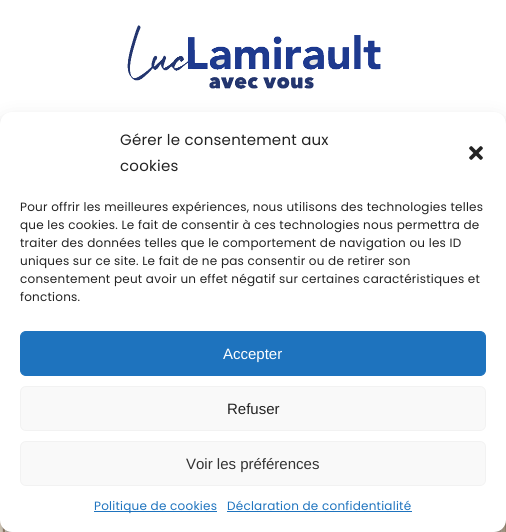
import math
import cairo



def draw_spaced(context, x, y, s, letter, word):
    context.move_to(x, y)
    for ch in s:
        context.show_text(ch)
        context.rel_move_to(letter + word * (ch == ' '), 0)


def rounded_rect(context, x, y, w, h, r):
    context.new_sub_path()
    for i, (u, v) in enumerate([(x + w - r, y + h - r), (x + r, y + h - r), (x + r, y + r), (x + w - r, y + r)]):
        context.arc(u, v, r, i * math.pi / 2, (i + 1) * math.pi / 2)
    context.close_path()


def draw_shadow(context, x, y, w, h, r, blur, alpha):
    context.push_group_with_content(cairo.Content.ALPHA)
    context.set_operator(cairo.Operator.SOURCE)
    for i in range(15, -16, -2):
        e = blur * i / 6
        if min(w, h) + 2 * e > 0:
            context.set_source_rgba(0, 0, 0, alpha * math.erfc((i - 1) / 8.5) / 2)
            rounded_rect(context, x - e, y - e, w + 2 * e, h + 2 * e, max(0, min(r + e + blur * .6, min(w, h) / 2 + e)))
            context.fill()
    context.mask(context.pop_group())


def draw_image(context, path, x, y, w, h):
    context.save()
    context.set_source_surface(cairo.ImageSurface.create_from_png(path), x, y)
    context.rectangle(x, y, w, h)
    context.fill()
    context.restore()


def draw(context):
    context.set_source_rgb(1, 1, 1)
    context.paint()
    draw_image(context, "images/1.png", 127, 25, 254, 64)
    draw_image(context, "images/2.png", 0, 520, 506, 12)
    context.set_source_rgb(0, 0, 0)
    draw_shadow(context, 0, 118, 506, 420, 12, 3, 0.23)
    draw_shadow(context, 0, 122, 506, 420, 12, 10, 0.19)
    context.set_source_rgb(1, 1, 1)
    rounded_rect(context, 0, 112, 506, 420, 12)
    context.fill()
    draw_image(context, "images/3.png", 469, 146, 14, 14)
    context.set_source_rgb(30 / 255, 115 / 255, 190 / 255)
    rounded_rect(context, 20.5, 331.5, 465, 44, 5.5)
    context.fill_preserve()
    context.set_line_width(1)
    context.stroke()
    context.set_source_rgb(249 / 255, 249 / 255, 249 / 255)
    rounded_rect(context, 20.5, 386.5, 465, 44, 5.5)
    context.fill_preserve()
    context.set_source_rgb(242 / 255, 242 / 255, 242 / 255)
    context.stroke()
    context.set_source_rgb(249 / 255, 249 / 255, 249 / 255)
    rounded_rect(context, 20.5, 441.5, 465, 44, 5.5)
    context.fill_preserve()
    context.set_source_rgb(242 / 255, 242 / 255, 242 / 255)
    context.stroke()
    context.set_source_rgb(30 / 255, 115 / 255, 190 / 255)
    context.rectangle(94, 511, 123, 1)
    context.fill()
    context.rectangle(227, 511, 185, 1)
    context.fill()
    context.select_font_face("Poppins")
    context.set_font_size(15)
    context.set_source_rgb(34 / 255, 34 / 255, 34 / 255)
    draw_spaced(context, 120, 145, "Gérer le consentement aux", 0.23, 0)
    draw_spaced(context, 120, 171, "cookies", 0.23, 0)
    context.set_font_size(12)
    draw_spaced(context, 20, 211, "Pour offrir les meilleures expériences, nous utilisons des technologies telles", 0.23, 0)
    draw_spaced(context, 20, 229, "que les cookies. Le fait de consentir à ces technologies nous permettra de", 0.23, 0)
    draw_spaced(context, 20, 247, "traiter des données telles que le comportement de navigation ou les ID", 0.23, 0)
    draw_spaced(context, 20, 265, "uniques sur ce site. Le fait de ne pas consentir ou de retirer son", 0.23, 0)
    draw_spaced(context, 20, 283, "consentement peut avoir un effet négatif sur certaines caractéristiques et", 0.23, 0)
    draw_spaced(context, 20, 301, "fonctions.", 0.23, 0)
    context.select_font_face("Liberation Sans")
    context.set_font_size(15)
    context.set_source_rgb(1, 1, 1)
    context.move_to(223, 359)
    context.show_text("Accepter")
    context.set_source_rgb(34 / 255, 34 / 255, 34 / 255)
    context.move_to(227, 414)
    context.show_text("Refuser")
    context.set_source_rgb(51 / 255, 51 / 255, 51 / 255)
    context.move_to(186, 469)
    context.show_text("Voir les préférences")
    context.select_font_face("Poppins")
    context.set_font_size(12)
    context.set_source_rgb(30 / 255, 115 / 255, 190 / 255)
    draw_spaced(context, 94, 510, "Politique de cookies", 0.23, 0)
    draw_spaced(context, 227, 510, "Déclaration de confidentialité", 0.23, 0)


surface = cairo.ImageSurface(cairo.Format.RGB24, 506, 532)
context = cairo.Context(surface)
options = cairo.FontOptions()
options.set_hint_metrics(cairo.HintMetrics.OFF)
options.set_hint_style(cairo.HintStyle.NONE)
context.set_font_options(options)
context.set_miter_limit(4)
draw(context)
surface.write_to_png("out.png")
